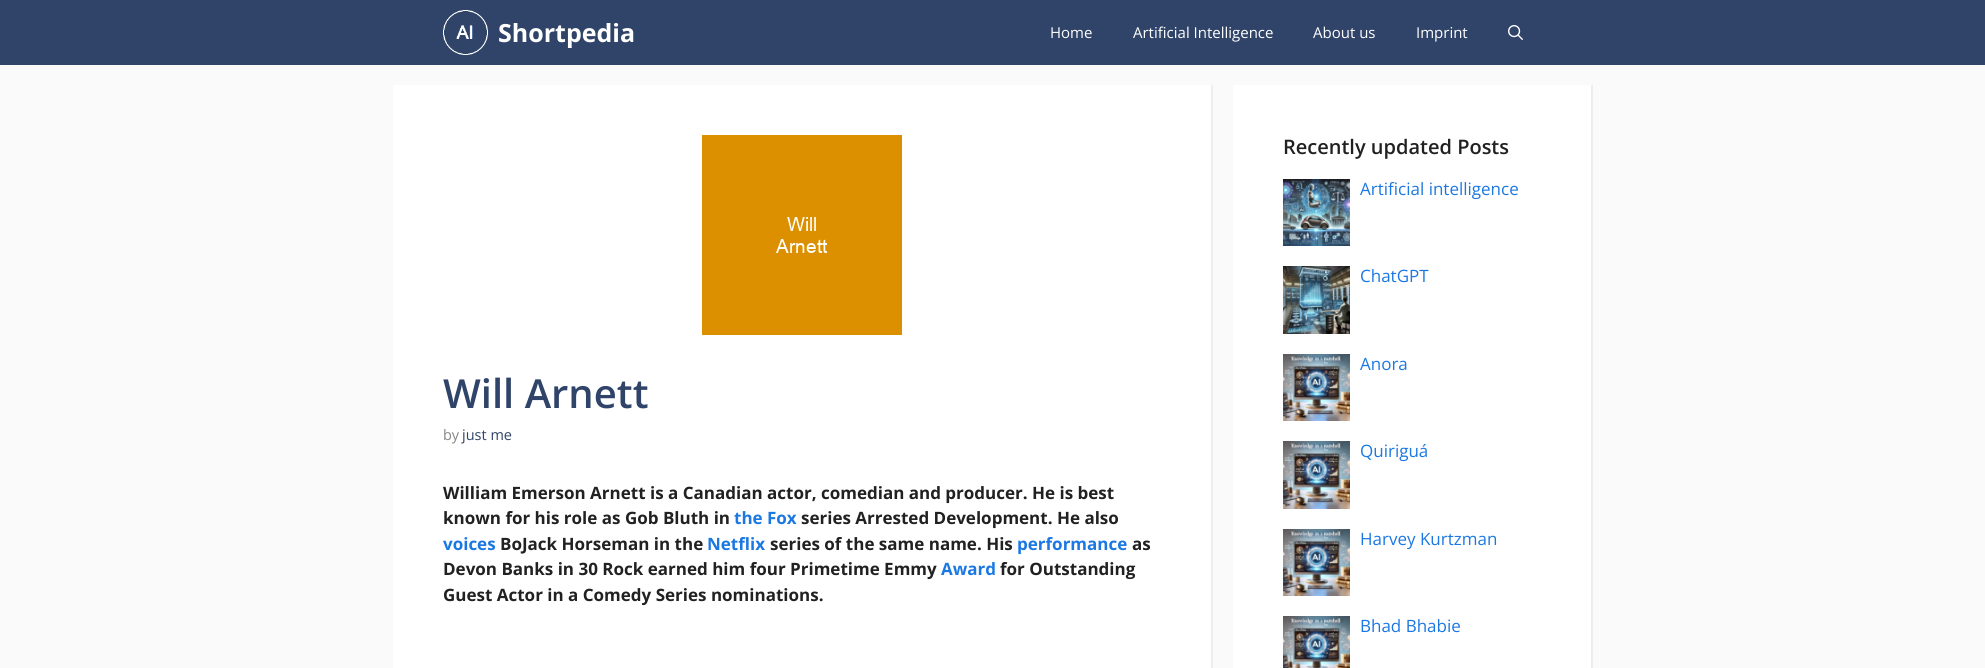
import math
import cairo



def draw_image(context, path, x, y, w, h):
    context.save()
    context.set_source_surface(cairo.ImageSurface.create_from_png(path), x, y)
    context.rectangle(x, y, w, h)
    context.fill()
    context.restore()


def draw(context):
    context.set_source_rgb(250 / 255, 250 / 255, 250 / 255)
    context.paint()
    context.set_source_rgb(47 / 255, 68 / 255, 104 / 255)
    context.rectangle(0, 0, 1985, 65)
    context.fill()
    draw_image(context, "images/1.png", 443, 10, 45, 45)
    draw_image(context, "images/2.png", 1508, 25, 15, 15)
    context.set_source_rgb(1, 1, 1)
    context.rectangle(393, 85, 818, 583)
    context.fill()
    context.set_source_rgb(237 / 255, 237 / 255, 237 / 255)
    context.new_path()
    context.move_to(1213, 85)
    context.line_to(1213, 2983)
    context.line_to(1211, 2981)
    context.line_to(1211, 85)
    context.close_path()
    context.fill()
    draw_image(context, "images/3.png", 702, 135, 200, 200)
    context.set_source_rgb(1, 1, 1)
    context.rectangle(1233, 85, 358, 583)
    context.fill()
    context.set_source_rgb(237 / 255, 237 / 255, 237 / 255)
    context.new_path()
    context.move_to(1593, 85)
    context.line_to(1593, 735)
    context.line_to(1591, 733)
    context.line_to(1591, 85)
    context.close_path()
    context.fill()
    draw_image(context, "images/4.png", 1283, 179, 67, 67)
    draw_image(context, "images/5.png", 1283, 266, 67, 68)
    draw_image(context, "images/6.png", 1283, 354, 67, 67)
    draw_image(context, "images/7.png", 1283, 441, 67, 68)
    draw_image(context, "images/6.png", 1283, 529, 67, 67)
    draw_image(context, "images/8.png", 1283, 616, 67, 52)
    context.select_font_face("Open Sans", cairo.FontSlant.NORMAL, cairo.FontWeight.BOLD)
    context.set_font_size(25)
    context.set_source_rgb(1, 1, 1)
    context.move_to(498, 42)
    context.show_text("Shortpedia")
    context.select_font_face("Open Sans")
    context.set_font_size(15)
    context.move_to(1050, 38)
    context.show_text("Home")
    context.move_to(1133, 38)
    context.show_text("Artificial Intelligence")
    context.move_to(1313, 38)
    context.show_text("About us")
    context.move_to(1416, 38)
    context.show_text("Imprint")
    context.select_font_face("Open Sans SemiBold")
    context.set_font_size(40)
    context.set_source_rgb(47 / 255, 68 / 255, 104 / 255)
    context.move_to(443, 408)
    context.show_text("Will Arnett")
    context.select_font_face("Open Sans")
    context.set_font_size(14.5)
    context.set_source_rgb(135 / 255, 135 / 255, 135 / 255)
    context.move_to(443, 440)
    context.show_text("by")
    context.set_source_rgb(47 / 255, 68 / 255, 104 / 255)
    context.move_to(462, 440)
    context.show_text("just me")
    context.select_font_face("Open Sans", cairo.FontSlant.NORMAL, cairo.FontWeight.BOLD)
    context.set_font_size(17)
    context.set_source_rgb(33 / 255, 33 / 255, 33 / 255)
    context.move_to(443, 499)
    context.show_text("William Emerson Arnett is a Canadian actor, comedian and producer. He is best")
    context.move_to(443, 524)
    context.show_text("known for his role as Gob Bluth in")
    context.set_source_rgb(27 / 255, 120 / 255, 226 / 255)
    context.move_to(734, 524)
    context.show_text("the Fox")
    context.set_source_rgb(33 / 255, 33 / 255, 33 / 255)
    context.move_to(801, 524)
    context.show_text("series Arrested Development. He also")
    context.set_source_rgb(27 / 255, 120 / 255, 226 / 255)
    context.move_to(443, 550)
    context.show_text("voices")
    context.set_source_rgb(33 / 255, 33 / 255, 33 / 255)
    context.move_to(500, 550)
    context.show_text("BoJack Horseman in the")
    context.set_source_rgb(27 / 255, 120 / 255, 226 / 255)
    context.move_to(707, 550)
    context.show_text("Netflix")
    context.set_source_rgb(33 / 255, 33 / 255, 33 / 255)
    context.move_to(770, 550)
    context.show_text("series of the same name. His")
    context.set_source_rgb(27 / 255, 120 / 255, 226 / 255)
    context.move_to(1017, 550)
    context.show_text("performance")
    context.set_source_rgb(33 / 255, 33 / 255, 33 / 255)
    context.move_to(1132, 550)
    context.show_text("as")
    context.move_to(443, 575)
    context.show_text("Devon Banks in 30 Rock earned him four Primetime Emmy")
    context.set_source_rgb(27 / 255, 120 / 255, 226 / 255)
    context.move_to(941, 575)
    context.show_text("Award")
    context.set_source_rgb(33 / 255, 33 / 255, 33 / 255)
    context.move_to(1000, 575)
    context.show_text("for Outstanding")
    context.move_to(443, 601)
    context.show_text("Guest Actor in a Comedy Series nominations.")
    context.select_font_face("Open Sans SemiBold")
    context.set_font_size(20)
    context.move_to(1283, 154)
    context.show_text("Recently updated Posts")
    context.select_font_face("Open Sans")
    context.set_font_size(17)
    context.set_source_rgb(27 / 255, 120 / 255, 226 / 255)
    context.move_to(1360, 195)
    context.show_text("Artificial intelligence")
    context.move_to(1360, 282)
    context.show_text("ChatGPT")
    context.move_to(1360, 370)
    context.show_text("Anora")
    context.move_to(1360, 457)
    context.show_text("Quiriguá")
    context.move_to(1360, 545)
    context.show_text("Harvey Kurtzman")
    context.move_to(1360, 632)
    context.show_text("Bhad Bhabie")


surface = cairo.ImageSurface(cairo.Format.RGB24, 1985, 668)
context = cairo.Context(surface)
options = cairo.FontOptions()
options.set_hint_metrics(cairo.HintMetrics.OFF)
options.set_hint_style(cairo.HintStyle.NONE)
context.set_font_options(options)
context.set_miter_limit(4)
draw(context)
surface.write_to_png("out.png")
